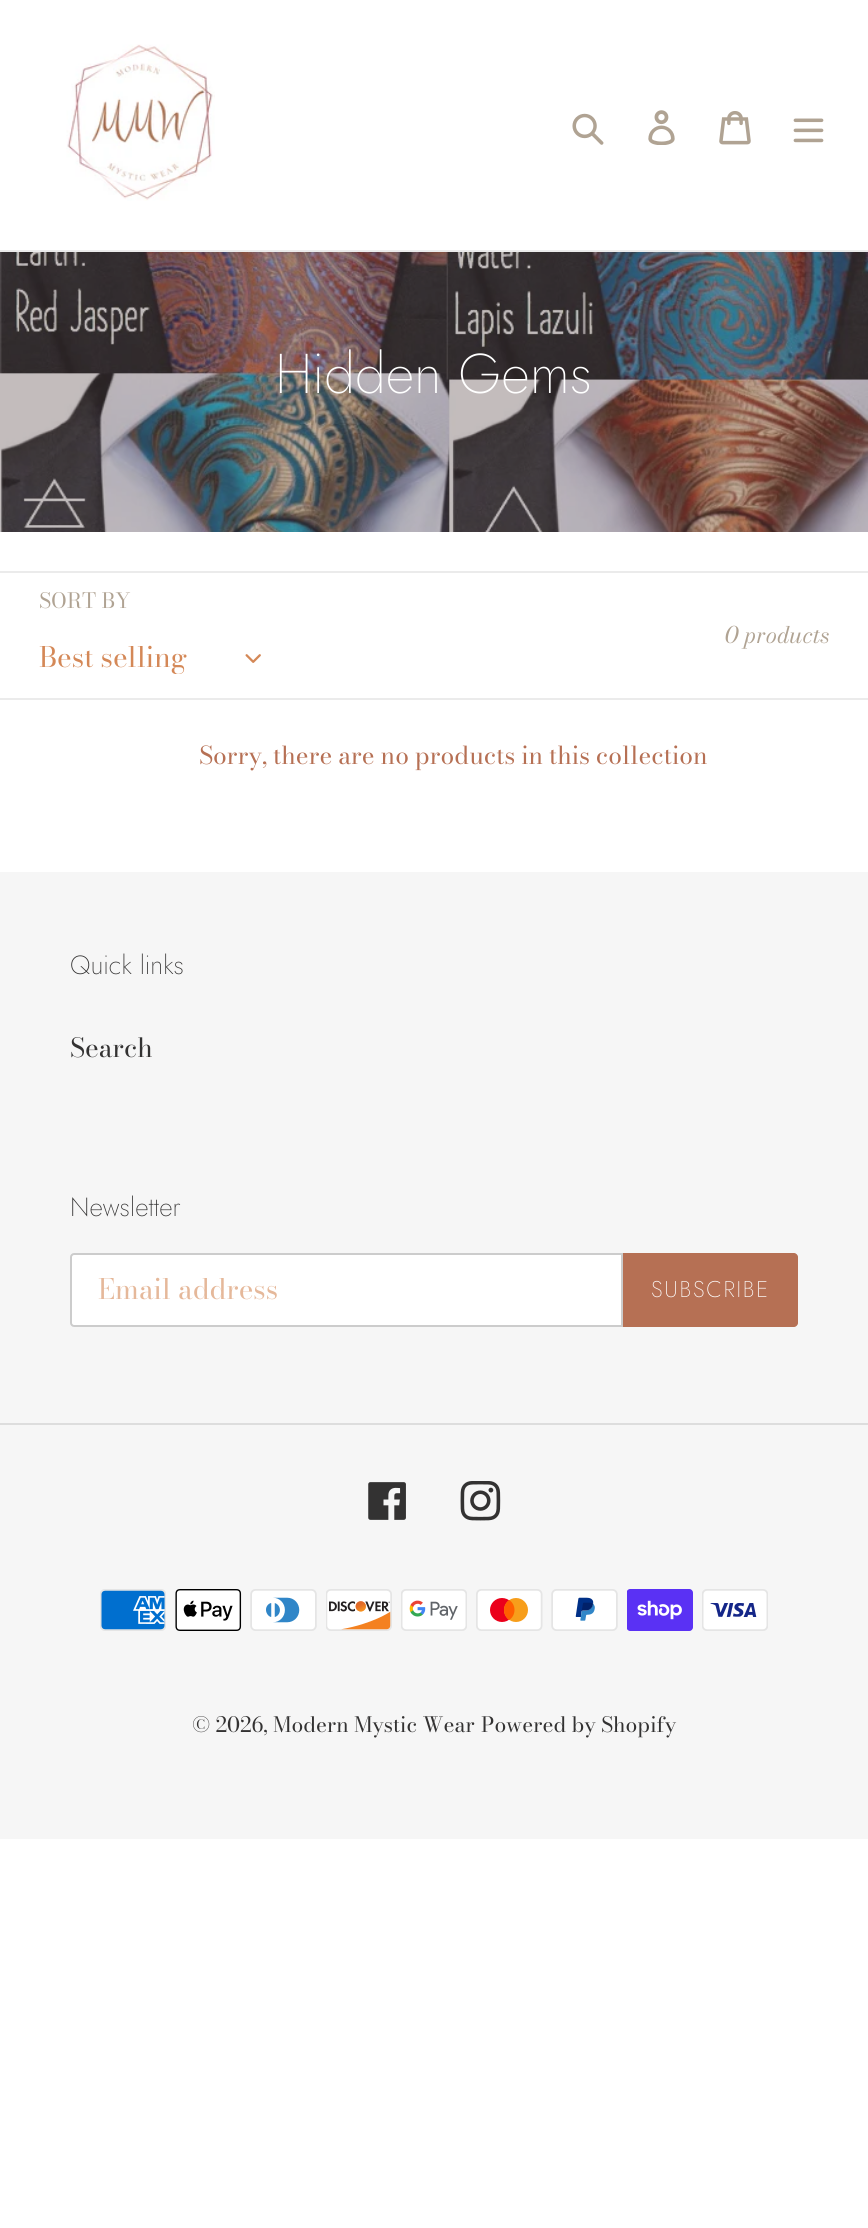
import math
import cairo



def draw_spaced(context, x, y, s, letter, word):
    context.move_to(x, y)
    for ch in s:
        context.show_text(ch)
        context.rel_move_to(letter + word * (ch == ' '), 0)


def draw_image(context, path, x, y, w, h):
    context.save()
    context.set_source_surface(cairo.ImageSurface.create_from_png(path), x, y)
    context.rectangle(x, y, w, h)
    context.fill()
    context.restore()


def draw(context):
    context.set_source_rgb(1, 1, 1)
    context.paint()
    context.set_source_rgb(235 / 255, 235 / 255, 235 / 255)
    context.rectangle(0, 250, 868, 2)
    context.fill()
    draw_image(context, "images/1.png", 66, 44, 149, 157)
    draw_image(context, "images/2.png", 572, 113, 32, 32)
    draw_image(context, "images/3.png", 648, 110, 27, 35)
    draw_image(context, "images/4.png", 719, 111, 32, 34)
    draw_image(context, "images/5.png", 793, 118, 31, 25)
    draw_image(context, "images/6.png", 0, 252, 868, 280)
    context.rectangle(0, 571, 868, 2)
    context.fill()
    context.rectangle(0, 698, 868, 2)
    context.fill()
    draw_image(context, "images/7.png", 245, 654, 16, 9)
    context.set_source_rgb(246 / 255, 246 / 255, 246 / 255)
    context.rectangle(0, 872, 868, 967)
    context.fill()
    context.set_source_rgb(1, 1, 1)
    context.new_path()
    context.move_to(74, 1254)
    context.line_to(622, 1254)
    context.line_to(622, 1326)
    context.line_to(74, 1326)
    context.curve_to(72.5, 1326, 71, 1324.5, 71, 1323)
    context.line_to(71, 1257)
    context.curve_to(71, 1255.5, 72.5, 1254, 74, 1254)
    context.close_path()
    context.fill_preserve()
    context.set_source_rgb(204 / 255, 204 / 255, 204 / 255)
    context.stroke()
    context.set_source_rgb(182 / 255, 112 / 255, 84 / 255)
    context.new_path()
    context.move_to(623, 1253)
    context.line_to(794, 1253)
    context.curve_to(796, 1253, 798, 1255, 798, 1257)
    context.line_to(798, 1323)
    context.curve_to(798, 1325, 796, 1327, 794, 1327)
    context.line_to(623, 1327)
    context.close_path()
    context.fill()
    context.set_source_rgb(221 / 255, 221 / 255, 221 / 255)
    context.rectangle(0, 1423, 868, 2)
    context.fill()
    draw_image(context, "images/8.png", 368, 1482, 38, 38)
    draw_image(context, "images/9.png", 460, 1481, 41, 40)
    draw_image(context, "images/10.png", 100, 1589, 66, 42)
    draw_image(context, "images/11.png", 175, 1589, 67, 42)
    draw_image(context, "images/12.png", 250, 1589, 67, 42)
    draw_image(context, "images/13.png", 326, 1589, 66, 42)
    draw_image(context, "images/14.png", 401, 1589, 66, 42)
    draw_image(context, "images/15.png", 476, 1589, 67, 42)
    draw_image(context, "images/16.png", 551, 1589, 67, 42)
    draw_image(context, "images/17.png", 627, 1589, 66, 42)
    draw_image(context, "images/18.png", 702, 1589, 66, 42)
    context.select_font_face("Jost ExtraLight")
    context.set_font_size(56)
    context.set_source_rgb(1, 1, 1)
    context.move_to(275, 393)
    context.show_text("Hidden Gems")
    context.select_font_face("Bodoni Moda")
    context.set_font_size(21)
    context.set_source_rgb(176 / 255, 163 / 255, 147 / 255)
    context.move_to(39, 608)
    context.show_text("SORT BY")
    context.save()
    context.rectangle(39, 641, 192, 33)
    context.clip()
    context.select_font_face("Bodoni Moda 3")
    context.set_font_size(28)
    context.set_source_rgb(212 / 255, 136 / 255, 87 / 255)
    context.move_to(39, 667)
    context.show_text("Best selling")
    context.restore()
    context.select_font_face("Bodoni Moda", cairo.FontSlant.ITALIC)
    context.set_font_size(22.75)
    context.move_to(724, 643)
    context.show_text("0 products")
    context.select_font_face("Bodoni Moda")
    context.set_font_size(24.5)
    context.set_source_rgb(182 / 255, 112 / 255, 84 / 255)
    draw_spaced(context, 199, 764, "Sorry, there are no products in this collection", 0, -0.25)
    context.select_font_face("Jost ExtraLight")
    context.set_font_size(26.25)
    context.set_source_rgb(51 / 255, 50 / 255, 50 / 255)
    context.move_to(70, 974)
    context.show_text("Quick links")
    context.select_font_face("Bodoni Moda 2")
    context.move_to(70, 1057)
    context.show_text("Search")
    context.select_font_face("Jost ExtraLight")
    context.move_to(70, 1216)
    context.show_text("Newsletter")
    context.select_font_face("Bodoni Moda 3")
    context.set_font_size(28)
    context.set_source_rgb(229 / 255, 184 / 255, 154 / 255)
    context.move_to(98, 1299)
    context.show_text("Email address")
    context.select_font_face("Jost ExtraLight")
    context.set_font_size(22.75)
    context.set_source_rgb(1, 1, 1)
    draw_spaced(context, 651, 1297, "SUBSCRIBE", 1.75, 0)
    context.select_font_face("Bodoni Moda")
    context.set_font_size(21)
    context.set_source_rgb(51 / 255, 50 / 255, 50 / 255)
    context.move_to(192, 1732)
    context.show_text("© 2026, Modern Mystic Wear")
    context.move_to(481, 1732)
    context.show_text("Powered by Shopify")


surface = cairo.ImageSurface(cairo.Format.RGB24, 868, 2228)
context = cairo.Context(surface)
options = cairo.FontOptions()
options.set_hint_metrics(cairo.HintMetrics.OFF)
options.set_hint_style(cairo.HintStyle.NONE)
context.set_font_options(options)
context.set_miter_limit(4)
draw(context)
surface.write_to_png("out.png")
